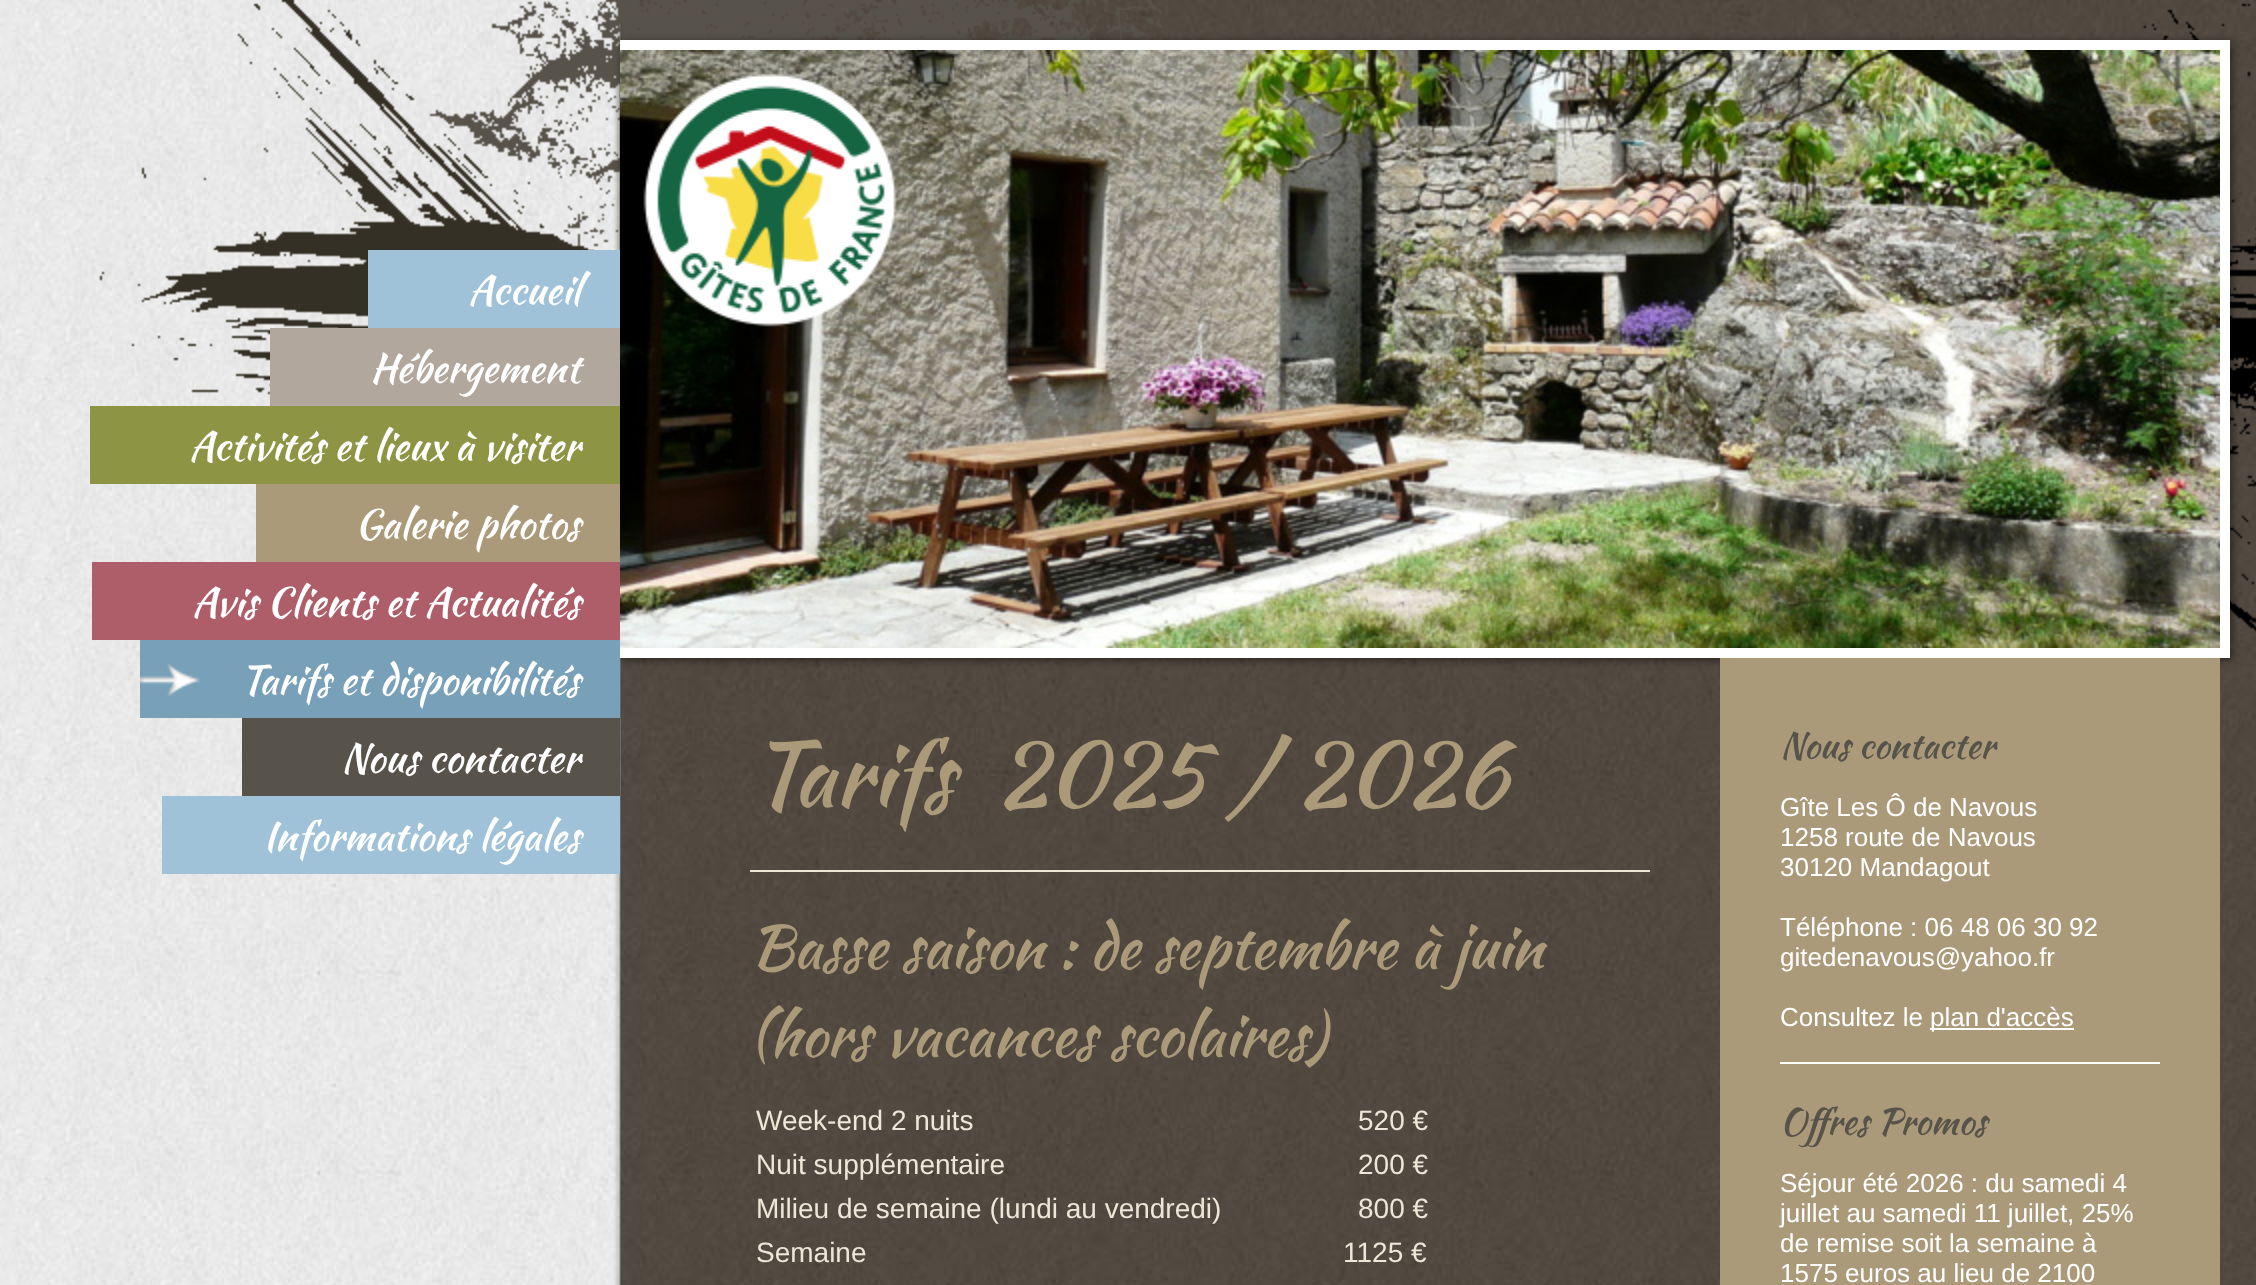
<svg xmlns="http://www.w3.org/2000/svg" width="2256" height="1285">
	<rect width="100%" height="100%" fill="#FFFFFF" />
	<image x="0" y="0" width="2256" height="1285" href="assets/img1.png" />
	<image x="99" y="0" width="2157" height="633" href="assets/img2.png" />
	<rect x="622" y="42" width="1610" height="618" fill="#000000" fill-opacity="0.5" filter="blur(4px)" />
	<rect x="368" y="250" width="252" height="78" fill="#9FC2D8" />
	<text x="468" y="304" font-family="Kaushan Script" font-size="40" fill="#FFFFFF">Accueil</text>
	<rect x="270" y="328" width="350" height="78" fill="#B1A79D" />
	<text x="370" y="382" font-family="Kaushan Script" font-size="40" fill="#FFFFFF">Hébergement</text>
	<rect x="90" y="406" width="530" height="78" fill="#8D9444" />
	<text x="189" y="460" font-family="Kaushan Script" font-size="40" fill="#FFFFFF">Activités et lieux à visiter</text>
	<rect x="256" y="484" width="364" height="78" fill="#AA9A79" />
	<text x="355" y="538" font-family="Kaushan Script" font-size="40" fill="#FFFFFF">Galerie photos</text>
	<rect x="92" y="562" width="528" height="78" fill="#AE5E69" />
	<text x="192" y="616" font-family="Kaushan Script" font-size="40" fill="#FFFFFF">Avis Clients et Actualités</text>
	<rect x="140" y="640" width="480" height="78" fill="#78A0B9" />
	<image x="140" y="664" width="60" height="32" href="assets/img3.png" />
	<text x="240" y="694" font-family="Kaushan Script" font-size="40" fill="#FFFFFF">Tarifs et disponibilités</text>
	<rect x="242" y="718" width="378" height="78" fill="#57534A" />
	<text x="341" y="772" font-family="Kaushan Script" font-size="40" fill="#FFFFFF">Nous contacter</text>
	<rect x="162" y="796" width="458" height="78" fill="#9FC2D8" />
	<text x="263" y="850" font-family="Kaushan Script" font-size="40" fill="#FFFFFF">Informations légales</text>
	<rect x="620" y="40" width="1600" height="10" fill="#FFFFFF" />
	<rect x="2220" y="40" width="10" height="608" fill="#FFFFFF" />
	<rect x="620" y="648" width="1610" height="10" fill="#FFFFFF" />
	<image x="620" y="50" width="1600" height="598" href="assets/img4.png" />
	<image x="643" y="73" width="254" height="254" href="assets/img5.png" />
	<text x="750" y="806" font-family="Kaushan Script" font-size="90" fill="#AA9A79" xml:space="preserve">Tarifs  2025 / 2026</text>
	<rect x="750" y="870" width="900" height="2" fill="#EEE7D8" />
	<g font-family="Kaushan Script" font-size="60" fill="#AA9A79">
		<text x="750" y="968">Basse saison : de septembre à juin</text>
		<text x="750" y="1056">(hors vacances scolaires)</text>
	</g>
	<g font-family="Liberation Sans" font-size="28" fill="#EEE7D8">
		<text x="756" y="1130">Week-end 2 nuits</text>
		<text x="1358" y="1130">520 €</text>
		<text x="756" y="1174">Nuit supplémentaire</text>
		<text x="1358" y="1174">200 €</text>
		<text x="756" y="1218">Milieu de semaine (lundi au vendredi)</text>
		<text x="1358" y="1218">800 €</text>
		<text x="756" y="1262">Semaine</text>
		<text x="1343" y="1262">1125 €</text>
	</g>
	<rect x="1720" y="658" width="500" height="627" fill="#AA9A79" />
	<text x="1780" y="758" font-family="Kaushan Script" font-size="36" fill="#57534A">Nous contacter</text>
	<g font-family="Liberation Sans" font-size="26" fill="#FFFFFF">
		<text x="1780" y="816">Gîte Les Ô de Navous</text>
		<text x="1780" y="846">1258 route de Navous</text>
		<text x="1780" y="876">30120 Mandagout</text>
		<text x="1780" y="936">Téléphone : 06 48 06 30 92</text>
		<text x="1780" y="966">gitedenavous@yahoo.fr</text>
		<text x="1780" y="1026">Consultez le</text>
	</g>
	<rect x="1930" y="1028" width="144" height="2" fill="#FFFFFF" />
	<text x="1930" y="1026" font-family="Liberation Sans" font-size="26" fill="#FFFFFF">plan d'accès</text>
	<rect x="1780" y="1062" width="380" height="2" fill="#FFFFFF" />
	<text x="1780" y="1134" font-family="Kaushan Script" font-size="36" fill="#57534A">Offres Promos</text>
	<g font-family="Liberation Sans" font-size="26" fill="#FFFFFF">
		<text x="1780" y="1192">Séjour été 2026 : du samedi 4</text>
		<text x="1780" y="1222">juillet au samedi 11 juillet, 25%</text>
		<text x="1780" y="1252">de remise soit la semaine à</text>
		<text x="1780" y="1282">1575 euros au lieu de 2100</text>
	</g>
</svg>
